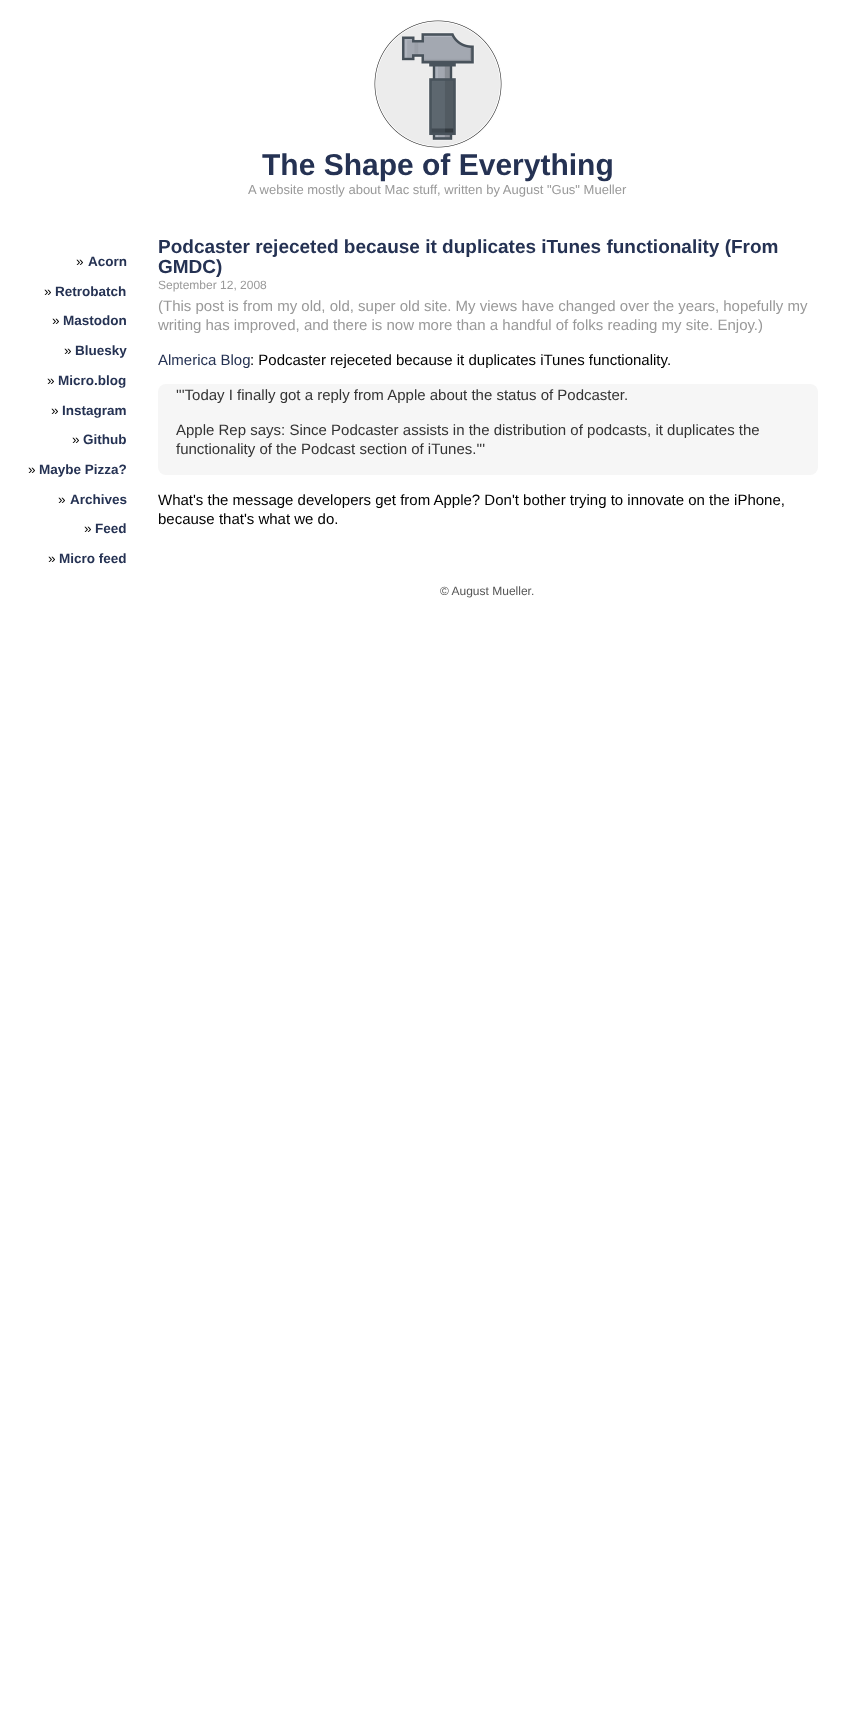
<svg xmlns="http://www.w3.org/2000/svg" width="865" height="1724">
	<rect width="100%" height="100%" fill="#FFFFFF" />
	<image x="374" y="20" width="128" height="128" href="assets/img1.png" />
	<text x="262" y="175" font-family="Liberation Sans" font-size="30" font-weight="700" fill="#253253">The Shape of Everything</text>
	<text x="248" y="194" font-family="Liberation Sans" font-size="13" fill="#999999">A website mostly about Mac stuff, written by August "Gus" Mueller</text>
	<text x="76" y="266" font-family="Liberation Sans" font-size="13.5" fill="#000000">»</text>
	<text x="88" y="266" font-family="Liberation Sans" font-size="13.5" font-weight="700" fill="#253253">Acorn</text>
	<text x="44" y="296" font-family="Liberation Sans" font-size="13.5" fill="#000000">»</text>
	<text x="55" y="296" font-family="Liberation Sans" font-size="13.5" font-weight="700" fill="#253253">Retrobatch</text>
	<text x="52" y="325" font-family="Liberation Sans" font-size="13.5" fill="#000000">»</text>
	<text x="63" y="325" font-family="Liberation Sans" font-size="13.5" font-weight="700" fill="#253253">Mastodon</text>
	<text x="64" y="355" font-family="Liberation Sans" font-size="13.5" fill="#000000">»</text>
	<text x="75" y="355" font-family="Liberation Sans" font-size="13.5" font-weight="700" fill="#253253">Bluesky</text>
	<text x="47" y="385" font-family="Liberation Sans" font-size="13.5" fill="#000000">»</text>
	<text x="58" y="385" font-family="Liberation Sans" font-size="13.5" font-weight="700" fill="#253253">Micro.blog</text>
	<text x="51" y="415" font-family="Liberation Sans" font-size="13.5" fill="#000000">»</text>
	<text x="62" y="415" font-family="Liberation Sans" font-size="13.5" font-weight="700" fill="#253253">Instagram</text>
	<text x="72" y="444" font-family="Liberation Sans" font-size="13.5" fill="#000000">»</text>
	<text x="83" y="444" font-family="Liberation Sans" font-size="13.5" font-weight="700" fill="#253253">Github</text>
	<text x="28" y="474" font-family="Liberation Sans" font-size="13.5" fill="#000000">»</text>
	<text x="39" y="474" font-family="Liberation Sans" font-size="13.5" font-weight="700" fill="#253253">Maybe Pizza?</text>
	<text x="58" y="504" font-family="Liberation Sans" font-size="13.5" fill="#000000">»</text>
	<text x="70" y="504" font-family="Liberation Sans" font-size="13.5" font-weight="700" fill="#253253">Archives</text>
	<text x="84" y="533" font-family="Liberation Sans" font-size="13.5" fill="#000000">»</text>
	<text x="95" y="533" font-family="Liberation Sans" font-size="13.5" font-weight="700" fill="#253253">Feed</text>
	<text x="48" y="563" font-family="Liberation Sans" font-size="13.5" fill="#000000">»</text>
	<text x="59" y="563" font-family="Liberation Sans" font-size="13.5" font-weight="700" fill="#253253">Micro feed</text>
	<g font-family="Liberation Sans" font-size="19" font-weight="700" fill="#253253">
		<text x="158" y="253">Podcaster rejeceted because it duplicates iTunes functionality (From</text>
		<text x="158" y="273">GMDC)</text>
	</g>
	<text x="158" y="289" font-family="Liberation Sans" font-size="12" fill="#999999">September 12, 2008</text>
	<g font-family="Liberation Sans" font-size="15" fill="#999999">
		<text x="158" y="311">(This post is from my old, old, super old site. My views have changed over the years, hopefully my</text>
		<text x="158" y="330">writing has improved, and there is now more than a handful of folks reading my site. Enjoy.)</text>
	</g>
	<text x="158" y="365" font-family="Liberation Sans" font-size="15" fill="#253253">Almerica Blog</text>
	<text x="250" y="365" font-family="Liberation Sans" font-size="15" fill="#000000">: Podcaster rejeceted because it duplicates iTunes functionality.</text>
	<rect x="158" y="384" width="660" height="91" rx="8" fill="#F6F6F6" />
	<g font-family="Liberation Sans" font-size="15" fill="#333333">
		<text x="176" y="400">'''Today I finally got a reply from Apple about the status of Podcaster.</text>
		<text x="176" y="435">Apple Rep says: Since Podcaster assists in the distribution of podcasts, it duplicates the</text>
		<text x="176" y="454">functionality of the Podcast section of iTunes.'''</text>
	</g>
	<g font-family="Liberation Sans" font-size="15" fill="#000000">
		<text x="158" y="505">What's the message developers get from Apple? Don't bother trying to innovate on the iPhone,</text>
		<text x="158" y="524">because that's what we do.</text>
	</g>
	<text x="440" y="595" font-family="Liberation Sans" font-size="12" fill="#555555">© August Mueller.</text>
</svg>
